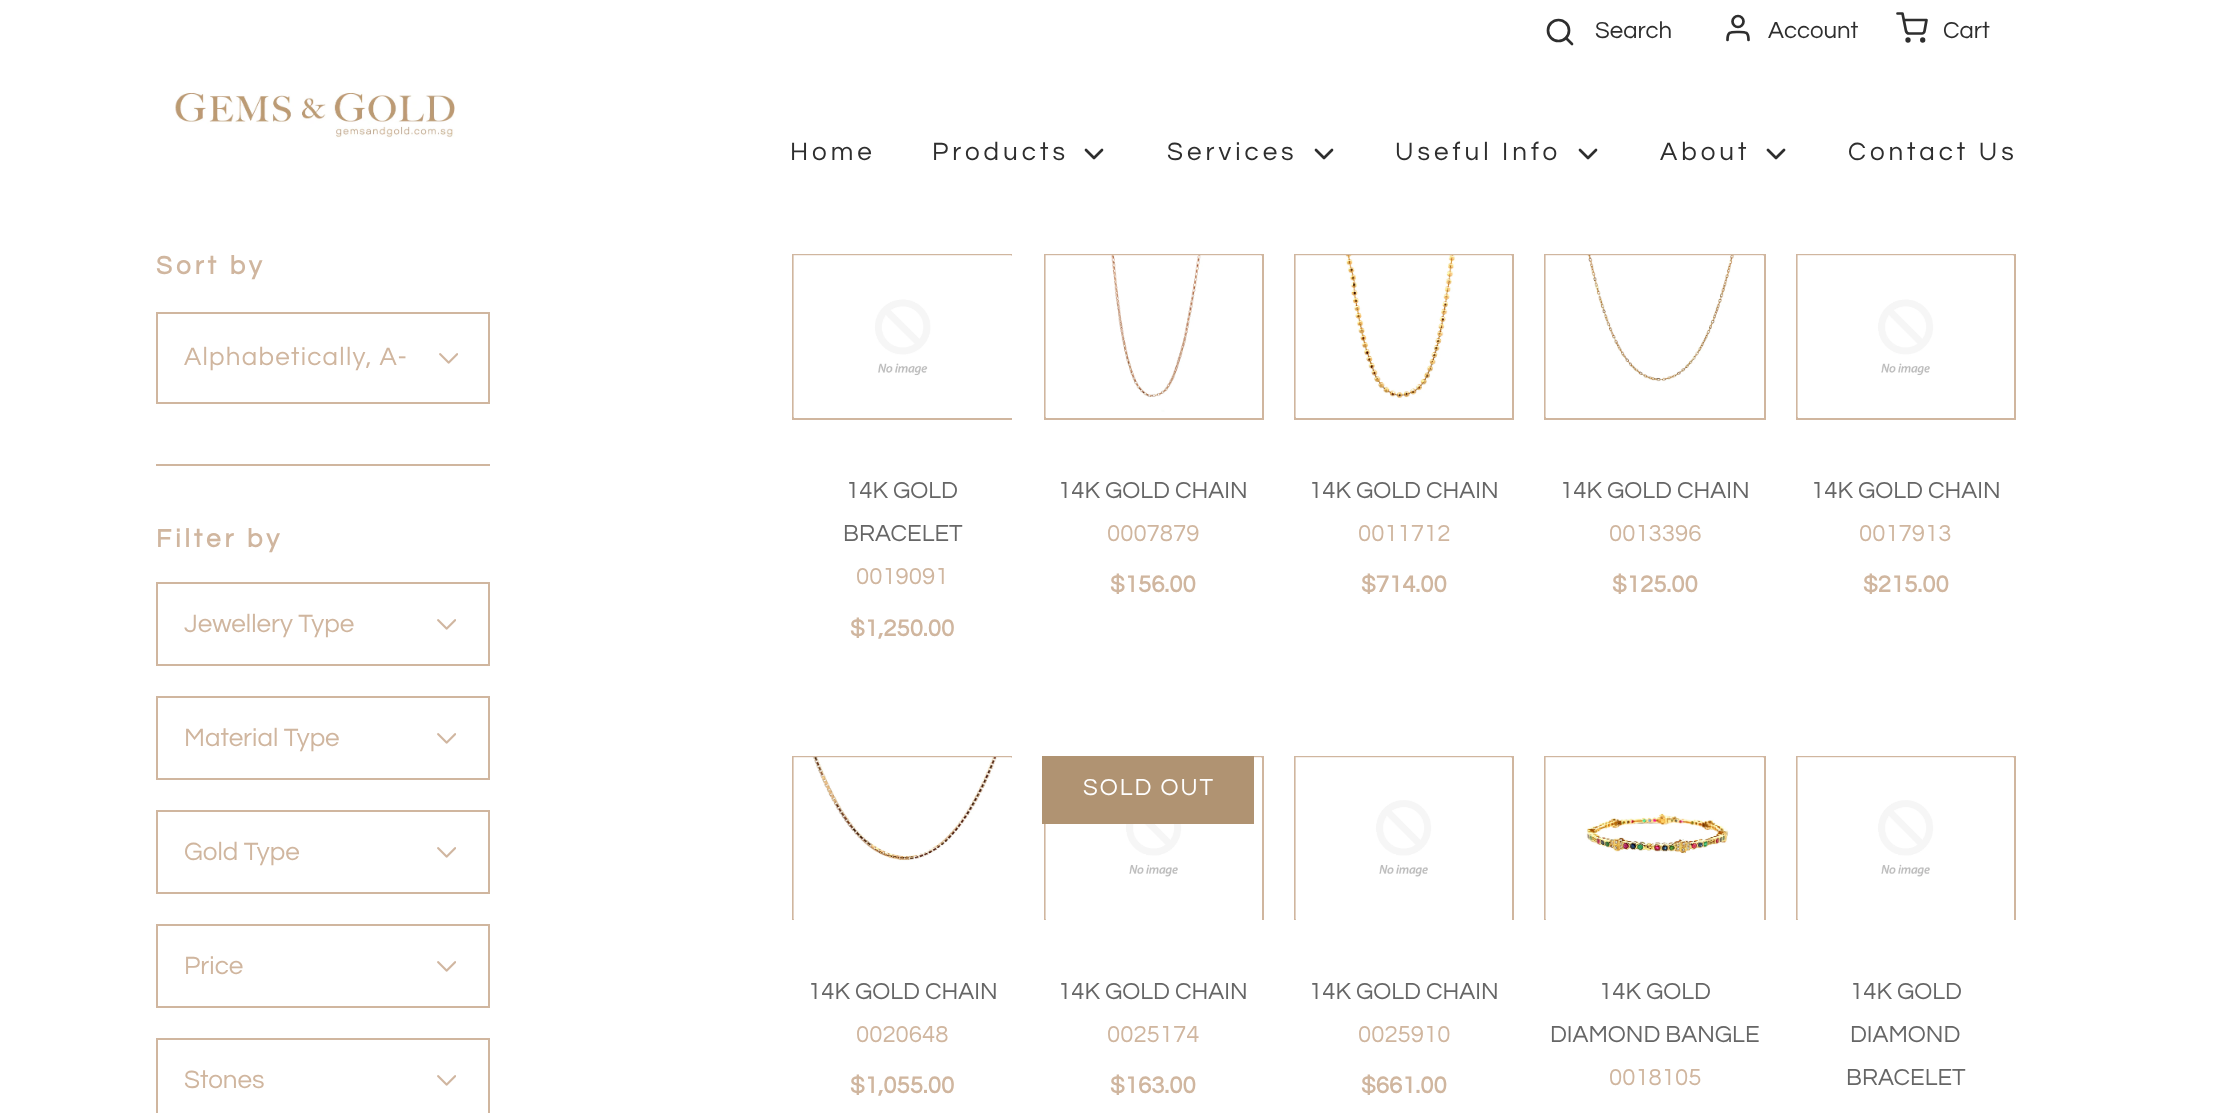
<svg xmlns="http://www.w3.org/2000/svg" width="2232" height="1113">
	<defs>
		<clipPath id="clip1"><rect x="792" y="254" width="220" height="166" /></clipPath>
		<clipPath id="clip2"><rect x="792" y="756" width="220" height="164" /></clipPath>
		<clipPath id="clip3"><rect x="1042" y="756" width="222" height="164" /></clipPath>
		<clipPath id="clip4"><rect x="1294" y="756" width="220" height="164" /></clipPath>
		<clipPath id="clip5"><rect x="1544" y="756" width="222" height="164" /></clipPath>
		<clipPath id="clip6"><rect x="1796" y="756" width="220" height="164" /></clipPath>
	</defs>
	<rect width="100%" height="100%" fill="#FFFFFF" />
	<circle cx="1558.5" cy="30.5" r="10.5" fill="none" stroke="#2E2E2E" stroke-width="2.7" />
	<text x="1595" y="38" font-family="Questrial" font-size="24" fill="#2E2E2E">Search</text>
	<path d="M1572 44L1566 38" fill="none" stroke="#2E2E2E" stroke-width="2.7" stroke-linecap="round" stroke-linejoin="round" />
	<path d="M1748.5 40C1748.5 31.5 1745.5 32 1738 32C1730.5 32 1727.5 31.5 1727.5 40" fill="none" stroke="#2E2E2E" stroke-width="2.7" stroke-linecap="round" stroke-linejoin="round" />
	<circle cx="1738" cy="21.5" r="5.5" fill="none" stroke="#2E2E2E" stroke-width="2.7" />
	<text x="1768" y="38" font-family="Questrial" font-size="24" fill="#2E2E2E">Account</text>
	<circle cx="1908" cy="40" r="1.3" fill="none" stroke="#2E2E2E" stroke-width="2.7" />
	<circle cx="1922.7" cy="40" r="1.3" fill="none" stroke="#2E2E2E" stroke-width="2.7" />
	<path d="M1897.5 13.5H1902.5L1906 31C1906.5 32.5 1907.5 33.5 1909 33.5H1922C1923 33.5 1924.5 32.5 1924.5 31L1926.5 20H1904" fill="none" stroke="#2E2E2E" stroke-width="2.7" stroke-linecap="round" stroke-linejoin="round" />
	<text x="1943" y="38" font-family="Questrial" font-size="24" fill="#2E2E2E">Cart</text>
	<image x="175" y="92" width="280" height="46" href="assets/img1.png" />
	<g font-family="Questrial" font-size="26" letter-spacing="4" fill="#2E2E2E">
		<text x="790" y="160">Home</text>
		<text x="932" y="160">Products</text>
	</g>
	<path d="M1086 150L1094 158L1102 150" fill="none" stroke="#2E2E2E" stroke-width="2.7" stroke-linecap="round" stroke-linejoin="round" />
	<text x="1167" y="160" font-family="Questrial" font-size="26" letter-spacing="4" fill="#2E2E2E">Services</text>
	<path d="M1316 150L1324 158L1332 150" fill="none" stroke="#2E2E2E" stroke-width="2.7" stroke-linecap="round" stroke-linejoin="round" />
	<text x="1395" y="160" font-family="Questrial" font-size="26" letter-spacing="4" fill="#2E2E2E">Useful Info</text>
	<path d="M1580 150L1588 158L1596 150" fill="none" stroke="#2E2E2E" stroke-width="2.7" stroke-linecap="round" stroke-linejoin="round" />
	<text x="1660" y="160" font-family="Questrial" font-size="26" letter-spacing="4" fill="#2E2E2E">About</text>
	<path d="M1768 150L1776 158L1784 150" fill="none" stroke="#2E2E2E" stroke-width="2.7" stroke-linecap="round" stroke-linejoin="round" />
	<text x="1848" y="160" font-family="Questrial" font-size="26" letter-spacing="4" fill="#2E2E2E">Contact Us</text>
	<text x="156" y="274" font-family="Questrial" font-size="26" font-weight="700" letter-spacing="4" fill="#D0B69F">Sort by</text>
	<rect x="157" y="313" width="332" height="90" fill="none" stroke="#D0B69F" stroke-width="2" />
	<text x="184" y="365" font-family="Questrial" font-size="26" letter-spacing="1.25" fill="#D0B69F">Alphabetically, A-</text>
	<image x="439" y="353" width="19" height="11" href="assets/img2.png" />
	<rect x="156" y="464" width="334" height="2" fill="#D0B69F" />
	<text x="156" y="547" font-family="Questrial" font-size="26" font-weight="700" letter-spacing="4" fill="#D0B69F">Filter by</text>
	<rect x="157" y="583" width="332" height="82" fill="none" stroke="#D0B69F" stroke-width="2" />
	<text x="184" y="632" font-family="Questrial" font-size="26" fill="#D0B69F">Jewellery Type</text>
	<image x="437" y="619" width="19" height="11" href="assets/img2.png" />
	<rect x="157" y="697" width="332" height="82" fill="none" stroke="#D0B69F" stroke-width="2" />
	<text x="184" y="746" font-family="Questrial" font-size="26" fill="#D0B69F">Material Type</text>
	<image x="437" y="733" width="19" height="11" href="assets/img2.png" />
	<rect x="157" y="811" width="332" height="82" fill="none" stroke="#D0B69F" stroke-width="2" />
	<text x="184" y="860" font-family="Questrial" font-size="26" fill="#D0B69F">Gold Type</text>
	<image x="437" y="847" width="19" height="11" href="assets/img2.png" />
	<rect x="157" y="925" width="332" height="82" fill="none" stroke="#D0B69F" stroke-width="2" />
	<text x="184" y="974" font-family="Questrial" font-size="26" fill="#D0B69F">Price</text>
	<image x="437" y="961" width="19" height="11" href="assets/img2.png" />
	<rect x="157" y="1039" width="332" height="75" fill="none" stroke="#D0B69F" stroke-width="2" />
	<text x="184" y="1088" font-family="Questrial" font-size="26" fill="#D0B69F">Stones</text>
	<image x="437" y="1075" width="19" height="11" href="assets/img2.png" />
	<g clip-path="url(#clip1)">
		<rect x="793" y="255" width="220" height="164" fill="none" stroke="#D0B69F" stroke-width="2" />
	</g>
	<image x="793" y="255" width="219" height="163" href="assets/img3.png" />
	<g font-family="Questrial" font-size="24" fill="#666666">
		<text x="846" y="498">14K GOLD</text>
		<text x="843" y="541">BRACELET</text>
	</g>
	<text x="856" y="584" font-family="Questrial" font-size="24" fill="#D0B69F">0019091</text>
	<text x="850" y="636" font-family="Questrial" font-size="24" font-weight="700" fill="#D0B69F">$1,250.00</text>
	<rect x="1045" y="255" width="218" height="164" fill="none" stroke="#D0B69F" stroke-width="2" />
	<image x="1045" y="255" width="217" height="163" href="assets/img4.png" />
	<text x="1058" y="498" font-family="Questrial" font-size="24" fill="#666666">14K GOLD CHAIN</text>
	<text x="1107" y="541" font-family="Questrial" font-size="24" fill="#D0B69F">0007879</text>
	<text x="1110" y="592" font-family="Questrial" font-size="24" font-weight="700" fill="#D0B69F">$156.00</text>
	<rect x="1295" y="255" width="218" height="164" fill="none" stroke="#D0B69F" stroke-width="2" />
	<image x="1295" y="255" width="217" height="163" href="assets/img5.png" />
	<text x="1309" y="498" font-family="Questrial" font-size="24" fill="#666666">14K GOLD CHAIN</text>
	<text x="1358" y="541" font-family="Questrial" font-size="24" fill="#D0B69F">0011712</text>
	<text x="1361" y="592" font-family="Questrial" font-size="24" font-weight="700" fill="#D0B69F">$714.00</text>
	<rect x="1545" y="255" width="220" height="164" fill="none" stroke="#D0B69F" stroke-width="2" />
	<image x="1545" y="255" width="219" height="163" href="assets/img6.png" />
	<text x="1560" y="498" font-family="Questrial" font-size="24" fill="#666666">14K GOLD CHAIN</text>
	<text x="1609" y="541" font-family="Questrial" font-size="24" fill="#D0B69F">0013396</text>
	<text x="1612" y="592" font-family="Questrial" font-size="24" font-weight="700" fill="#D0B69F">$125.00</text>
	<rect x="1797" y="255" width="218" height="164" fill="none" stroke="#D0B69F" stroke-width="2" />
	<image x="1797" y="255" width="217" height="163" href="assets/img7.png" />
	<text x="1811" y="498" font-family="Questrial" font-size="24" fill="#666666">14K GOLD CHAIN</text>
	<text x="1859" y="541" font-family="Questrial" font-size="24" fill="#D0B69F">0017913</text>
	<text x="1863" y="592" font-family="Questrial" font-size="24" font-weight="700" fill="#D0B69F">$215.00</text>
	<g clip-path="url(#clip2)">
		<rect x="793" y="757" width="220" height="164" fill="none" stroke="#D0B69F" stroke-width="2" />
	</g>
	<image x="793" y="757" width="219" height="163" href="assets/img8.png" />
	<text x="808" y="999" font-family="Questrial" font-size="24" fill="#666666">14K GOLD CHAIN</text>
	<text x="856" y="1042" font-family="Questrial" font-size="24" fill="#D0B69F">0020648</text>
	<text x="850" y="1093" font-family="Questrial" font-size="24" font-weight="700" fill="#D0B69F">$1,055.00</text>
	<g clip-path="url(#clip3)">
		<rect x="1045" y="757" width="218" height="164" fill="none" stroke="#D0B69F" stroke-width="2" />
	</g>
	<image x="1045" y="757" width="217" height="163" href="assets/img9.png" />
	<rect x="1042" y="756" width="212" height="68" fill="#B09372" />
	<text x="1083" y="795" font-family="Questrial" font-size="24" letter-spacing="2" fill="#FFFFFF">SOLD OUT</text>
	<text x="1058" y="999" font-family="Questrial" font-size="24" fill="#666666">14K GOLD CHAIN</text>
	<text x="1107" y="1042" font-family="Questrial" font-size="24" fill="#D0B69F">0025174</text>
	<text x="1110" y="1093" font-family="Questrial" font-size="24" font-weight="700" fill="#D0B69F">$163.00</text>
	<g clip-path="url(#clip4)">
		<rect x="1295" y="757" width="218" height="164" fill="none" stroke="#D0B69F" stroke-width="2" />
	</g>
	<image x="1295" y="757" width="217" height="163" href="assets/img10.png" />
	<text x="1309" y="999" font-family="Questrial" font-size="24" fill="#666666">14K GOLD CHAIN</text>
	<text x="1358" y="1042" font-family="Questrial" font-size="24" fill="#D0B69F">0025910</text>
	<text x="1361" y="1093" font-family="Questrial" font-size="24" font-weight="700" fill="#D0B69F">$661.00</text>
	<g clip-path="url(#clip5)">
		<rect x="1545" y="757" width="220" height="164" fill="none" stroke="#D0B69F" stroke-width="2" />
	</g>
	<image x="1545" y="757" width="219" height="163" href="assets/img11.png" />
	<g font-family="Questrial" font-size="24" fill="#666666">
		<text x="1599" y="999">14K GOLD</text>
		<text x="1550" y="1042">DIAMOND BANGLE</text>
	</g>
	<text x="1609" y="1085" font-family="Questrial" font-size="24" fill="#D0B69F">0018105</text>
	<g clip-path="url(#clip6)">
		<rect x="1797" y="757" width="218" height="164" fill="none" stroke="#D0B69F" stroke-width="2" />
	</g>
	<image x="1797" y="757" width="217" height="163" href="assets/img9.png" />
	<g font-family="Questrial" font-size="24" fill="#666666">
		<text x="1850" y="999">14K GOLD</text>
		<text x="1850" y="1042">DIAMOND</text>
		<text x="1846" y="1085">BRACELET</text>
	</g>
</svg>
